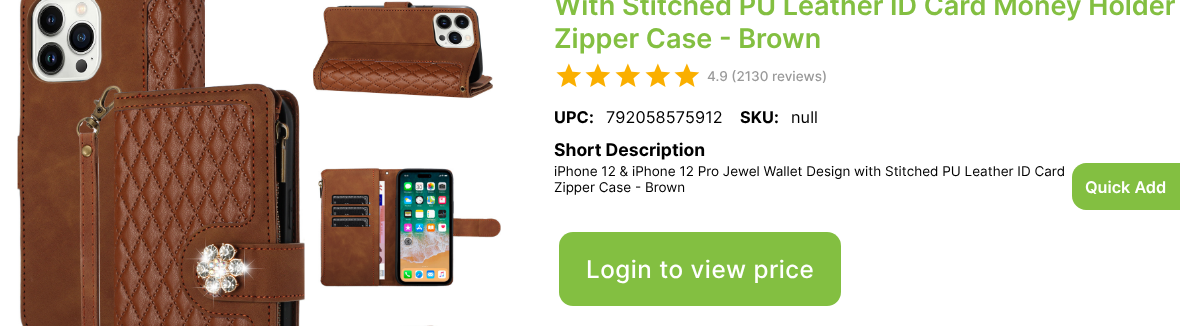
<svg xmlns="http://www.w3.org/2000/svg" width="1180" height="326">
	<rect width="100%" height="100%" fill="#FFFFFF" />
	<image x="17" y="0" width="484" height="326" href="assets/img1.png" />
	<g font-family="Inter" font-size="27" font-weight="600" fill="#83BF41">
		<text x="554" y="15">With Stitched PU Leather ID Card Money Holder</text>
		<text x="554" y="48">Zipper Case - Brown</text>
	</g>
	<image x="556" y="63" width="26" height="24" href="assets/img2.png" />
	<image x="585" y="63" width="26" height="24" href="assets/img2.png" />
	<image x="615" y="63" width="26" height="24" href="assets/img2.png" />
	<image x="645" y="63" width="26" height="24" href="assets/img2.png" />
	<image x="674" y="63" width="26" height="24" href="assets/img2.png" />
	<text x="707" y="81" font-family="Inter" font-size="13.5" font-weight="500" fill="#9A9A9A">4.9 (2130 reviews)</text>
	<text x="554" y="123" font-family="Inter" font-size="16.25" font-weight="700" letter-spacing="0.1" fill="#000000">UPC:</text>
	<text x="606" y="123" font-family="Inter" font-size="16.25" letter-spacing="0.1" fill="#000000">792058575912</text>
	<text x="740" y="123" font-family="Inter" font-size="16.25" font-weight="700" letter-spacing="0.1" fill="#000000">SKU:</text>
	<text x="791" y="123" font-family="Inter" font-size="16.25" letter-spacing="0.1" fill="#000000">null</text>
	<text x="554" y="156" font-family="Inter" font-size="17.5" font-weight="700" fill="#000000">Short Description</text>
	<g font-family="Inter" font-size="13.5" fill="#000000">
		<text x="554" y="176">iPhone 12 &amp; iPhone 12 Pro Jewel Wallet Design with Stitched PU Leather ID Card</text>
		<text x="554" y="192">Zipper Case - Brown</text>
	</g>
	<rect x="559" y="232" width="282" height="74" rx="14" fill="#83BF41" />
	<text x="586" y="278" font-family="Inter" font-size="24.25" font-weight="500" letter-spacing="0.5" fill="#FFFFFF">Login to view price</text>
	<path d="M1086 163H1180V210H1086C1078.5 210 1072 203.5 1072 196V177C1072 169.5 1078.5 163 1086 163Z" fill="#83BF41" />
	<text x="1085" y="193" font-family="Inter" font-size="16.25" font-weight="600" fill="#FFFFFF">Quick Add</text>
</svg>
